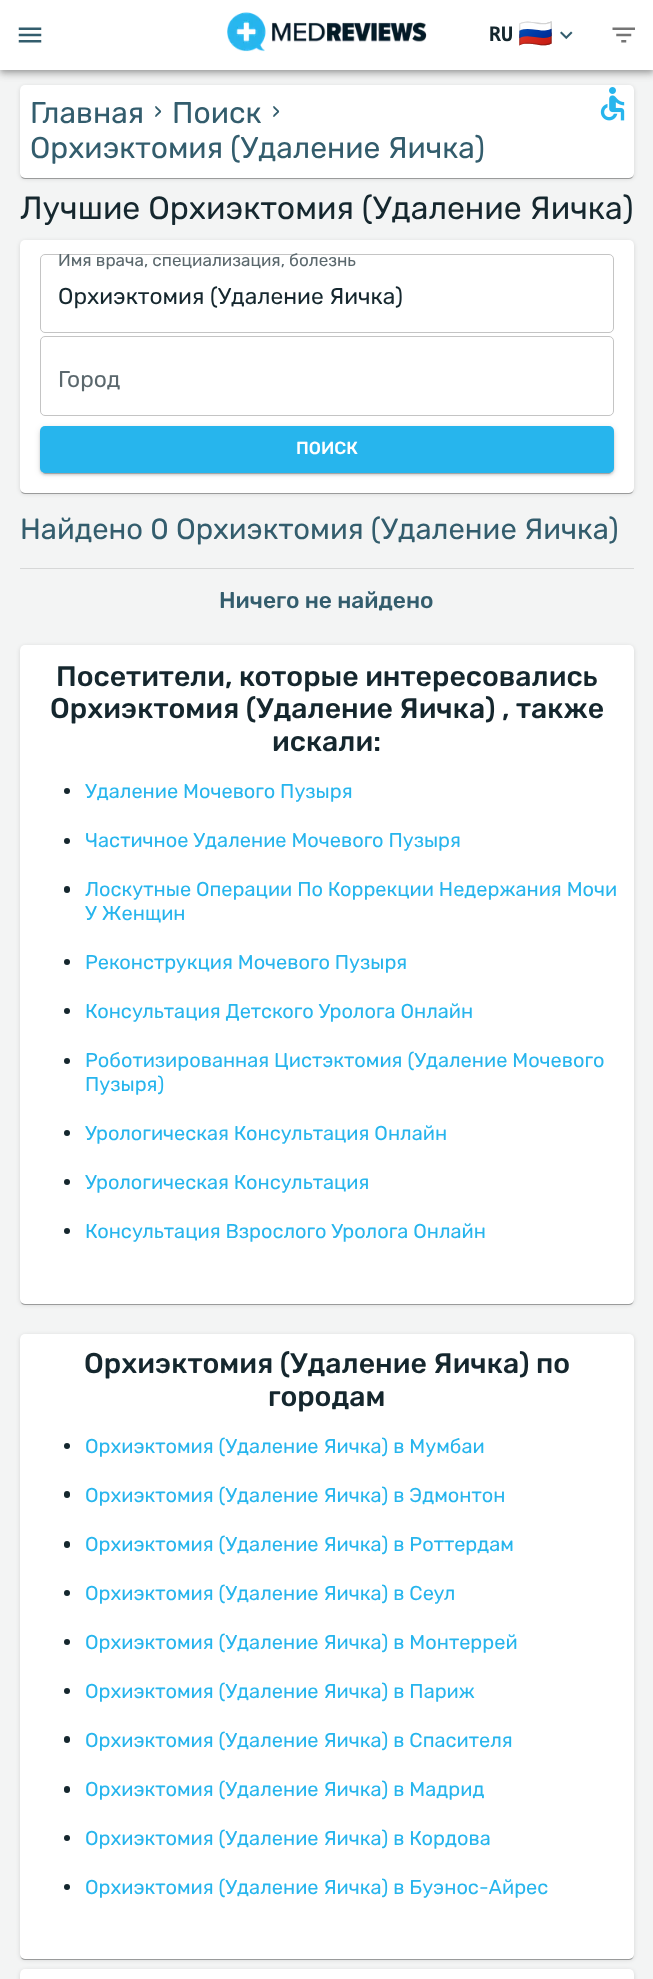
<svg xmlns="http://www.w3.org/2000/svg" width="653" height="1979">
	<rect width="100%" height="100%" fill="#F3F4F4" />
	<rect x="20" y="86" width="614" height="93" rx="5" fill="#000000" fill-opacity="0.12" filter="blur(2px)" />
	<rect x="20" y="86" width="614" height="93" rx="5" fill="#000000" fill-opacity="0.14" filter="blur(0.5px)" />
	<rect x="21" y="89" width="612" height="90" rx="4" fill="#000000" fill-opacity="0.2" filter="blur(0.5px)" />
	<rect x="20" y="85" width="614" height="93" rx="5" fill="#FFFFFF" />
	<rect x="0" y="1" width="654" height="70" fill="#000000" fill-opacity="0.12" filter="blur(6px)" />
	<rect x="0" y="5" width="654" height="70" fill="#000000" fill-opacity="0.14" filter="blur(3px)" />
	<rect x="1" y="4" width="652" height="67" fill="#000000" fill-opacity="0.2" filter="blur(2.5px)" />
	<rect x="0" y="0" width="653" height="70" fill="#FFFFFF" />
	<image x="18" y="27" width="24" height="16" href="assets/img1.png" />
	<image x="227" y="12" width="200" height="40" href="assets/img2.png" />
	<text x="489" y="41" font-family="DejaVu Sans Mono" font-size="20" font-weight="700" fill="#15272E">RU</text>
	<text x="518" y="43" font-family="Noto Color Emoji" font-size="28" fill="#335D6D">🇷🇺</text>
	<image x="560" y="31" width="13" height="9" href="assets/img3.png" />
	<image x="612" y="27" width="23" height="16" href="assets/img4.png" />
	<image x="600" y="87" width="25" height="34" href="assets/img5.png" />
	<text x="30" y="123" font-family="Rubik" font-size="30" fill="#335D6D">Главная</text>
	<text x="154" y="119" font-family="Rubik" font-size="22.75" fill="#335D6D">›</text>
	<text x="172" y="123" font-family="Rubik" font-size="30" fill="#335D6D">Поиск</text>
	<text x="272" y="119" font-family="Rubik" font-size="22.75" fill="#335D6D">›</text>
	<text x="30" y="158" font-family="Rubik" font-size="30" fill="#335D6D">Орхиэктомия (Удаление Яичка)</text>
	<text x="20" y="219" font-family="Rubik" font-size="32" fill="#15272E">Лучшие Орхиэктомия (Удаление Яичка)</text>
	<rect x="20" y="241" width="614" height="253" rx="5" fill="#000000" fill-opacity="0.12" filter="blur(2px)" />
	<rect x="20" y="241" width="614" height="253" rx="5" fill="#000000" fill-opacity="0.14" filter="blur(0.5px)" />
	<rect x="21" y="244" width="612" height="250" rx="4" fill="#000000" fill-opacity="0.2" filter="blur(0.5px)" />
	<rect x="20" y="240" width="614" height="253" rx="5" fill="#FFFFFF" />
	<rect x="40.5" y="254.5" width="573" height="78" rx="4.5" fill="none" stroke="#C4C4C4" />
	<text x="58" y="266" font-family="Rubik" font-size="17.1" fill="#5B686D">Имя врача, специализация, болезнь</text>
	<text x="58" y="304" font-family="Rubik" font-size="22.75" fill="#15272E">Орхиэктомия (Удаление Яичка)</text>
	<rect x="40.5" y="336.5" width="573" height="79" rx="4.5" fill="none" stroke="#C4C4C4" />
	<text x="58" y="387" font-family="Rubik" font-size="22.75" fill="#5B686D">Город</text>
	<rect x="40" y="428" width="574" height="46" rx="5" fill="#000000" fill-opacity="0.12" filter="blur(3px)" />
	<rect x="40" y="429" width="574" height="46" rx="5" fill="#000000" fill-opacity="0.14" filter="blur(1px)" />
	<rect x="43" y="433" width="568" height="41" rx="2.5" fill="#000000" fill-opacity="0.2" filter="blur(0.5px)" />
	<rect x="40" y="426" width="574" height="47" rx="5" fill="#27B5ED" />
	<text x="296" y="454" font-family="Rubik" font-size="17.5" font-weight="500" fill="#FFFFFF">ПОИСК</text>
	<text x="20" y="539" font-family="Rubik" font-size="29.2" fill="#335D6D">Найдено 0 Орхиэктомия (Удаление Яичка)</text>
	<rect x="20" y="568" width="614" height="1" fill="#D6D7D7" />
	<text x="219" y="608" font-family="Rubik" font-size="22.75" font-weight="500" fill="#335D6D">Ничего не найдено</text>
	<rect x="20" y="646" width="614" height="659" rx="5" fill="#000000" fill-opacity="0.12" filter="blur(2px)" />
	<rect x="20" y="646" width="614" height="659" rx="5" fill="#000000" fill-opacity="0.14" filter="blur(0.5px)" />
	<rect x="21" y="649" width="612" height="656" rx="4" fill="#000000" fill-opacity="0.2" filter="blur(0.5px)" />
	<rect x="20" y="645" width="614" height="659" rx="5" fill="#FFFFFF" />
	<g font-family="Rubik" font-size="28.4" font-weight="500" fill="#15272E">
		<text x="56" y="686">Посетители, которые интересовались</text>
		<text x="50" y="718">Орхиэктомия (Удаление Яичка) , также</text>
		<text x="272" y="751">искали:</text>
	</g>
	<circle cx="67" cy="791" r="3" fill="#15272E" />
	<text x="85" y="798" font-family="Rubik" font-size="20" fill="#27B5ED">Удаление Мочевого Пузыря</text>
	<circle cx="67" cy="841" r="3" fill="#15272E" />
	<text x="85" y="847" font-family="Rubik" font-size="20" fill="#27B5ED">Частичное Удаление Мочевого Пузыря</text>
	<rect x="64" y="886" width="6" height="7" rx="3" fill="#15272E" />
	<g font-family="Rubik" font-size="20" fill="#27B5ED">
		<text x="85" y="896">Лоскутные Операции По Коррекции Недержания Мочи</text>
		<text x="85" y="920">У Женщин</text>
	</g>
	<circle cx="67" cy="962" r="3" fill="#15272E" />
	<text x="85" y="969" font-family="Rubik" font-size="20" fill="#27B5ED">Реконструкция Мочевого Пузыря</text>
	<circle cx="67" cy="1011" r="3" fill="#15272E" />
	<text x="85" y="1018" font-family="Rubik" font-size="20" fill="#27B5ED">Консультация Детского Уролога Онлайн</text>
	<circle cx="67" cy="1061" r="3" fill="#15272E" />
	<g font-family="Rubik" font-size="20" fill="#27B5ED">
		<text x="85" y="1067">Роботизированная Цистэктомия (Удаление Мочевого</text>
		<text x="85" y="1091">Пузыря)</text>
	</g>
	<circle cx="67" cy="1133" r="3" fill="#15272E" />
	<text x="85" y="1140" font-family="Rubik" font-size="20" fill="#27B5ED">Урологическая Консультация Онлайн</text>
	<circle cx="67" cy="1182" r="3" fill="#15272E" />
	<text x="85" y="1189" font-family="Rubik" font-size="20" fill="#27B5ED">Урологическая Консультация</text>
	<circle cx="67" cy="1231" r="3" fill="#15272E" />
	<text x="85" y="1238" font-family="Rubik" font-size="20" fill="#27B5ED">Консультация Взрослого Уролога Онлайн</text>
	<rect x="20" y="1335" width="614" height="625" rx="5" fill="#000000" fill-opacity="0.12" filter="blur(2px)" />
	<rect x="20" y="1335" width="614" height="625" rx="5" fill="#000000" fill-opacity="0.14" filter="blur(0.5px)" />
	<rect x="21" y="1338" width="612" height="622" rx="4" fill="#000000" fill-opacity="0.2" filter="blur(0.5px)" />
	<rect x="20" y="1334" width="614" height="625" rx="5" fill="#FFFFFF" />
	<g font-family="Rubik" font-size="28.4" font-weight="500" fill="#15272E">
		<text x="84" y="1373">Орхиэктомия (Удаление Яичка) по</text>
		<text x="268" y="1406">городам</text>
	</g>
	<circle cx="67" cy="1446" r="3" fill="#15272E" />
	<text x="85" y="1453" font-family="Rubik" font-size="20" fill="#27B5ED">Орхиэктомия (Удаление Яичка) в Мумбаи</text>
	<rect x="64" y="1491" width="6" height="7" rx="3" fill="#15272E" />
	<text x="85" y="1502" font-family="Rubik" font-size="20" fill="#27B5ED">Орхиэктомия (Удаление Яичка) в Эдмонтон</text>
	<rect x="64" y="1541" width="6" height="7" rx="3" fill="#15272E" />
	<text x="85" y="1551" font-family="Rubik" font-size="20" fill="#27B5ED">Орхиэктомия (Удаление Яичка) в Роттердам</text>
	<circle cx="67" cy="1593" r="3" fill="#15272E" />
	<text x="85" y="1600" font-family="Rubik" font-size="20" fill="#27B5ED">Орхиэктомия (Удаление Яичка) в Сеул</text>
	<circle cx="67" cy="1642" r="3" fill="#15272E" />
	<text x="85" y="1649" font-family="Rubik" font-size="20" fill="#27B5ED">Орхиэктомия (Удаление Яичка) в Монтеррей</text>
	<circle cx="67" cy="1691" r="3" fill="#15272E" />
	<text x="85" y="1698" font-family="Rubik" font-size="20" fill="#27B5ED">Орхиэктомия (Удаление Яичка) в Париж</text>
	<rect x="64" y="1736" width="6" height="7" rx="3" fill="#15272E" />
	<text x="85" y="1747" font-family="Rubik" font-size="20" fill="#27B5ED">Орхиэктомия (Удаление Яичка) в Спасителя</text>
	<rect x="64" y="1786" width="6" height="7" rx="3" fill="#15272E" />
	<text x="85" y="1796" font-family="Rubik" font-size="20" fill="#27B5ED">Орхиэктомия (Удаление Яичка) в Мадрид</text>
	<circle cx="67" cy="1838" r="3" fill="#15272E" />
	<text x="85" y="1845" font-family="Rubik" font-size="20" fill="#27B5ED">Орхиэктомия (Удаление Яичка) в Кордова</text>
	<circle cx="67" cy="1887" r="3" fill="#15272E" />
	<text x="85" y="1894" font-family="Rubik" font-size="20" fill="#27B5ED">Орхиэктомия (Удаление Яичка) в Буэнос-Айрес</text>
	<rect x="20" y="1970" width="614" height="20" rx="5" fill="#000000" fill-opacity="0.12" filter="blur(2px)" />
	<rect x="20" y="1970" width="614" height="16" rx="5" fill="#000000" fill-opacity="0.14" filter="blur(0.5px)" />
	<rect x="20" y="1969" width="614" height="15" rx="5" fill="#FFFFFF" />
</svg>
